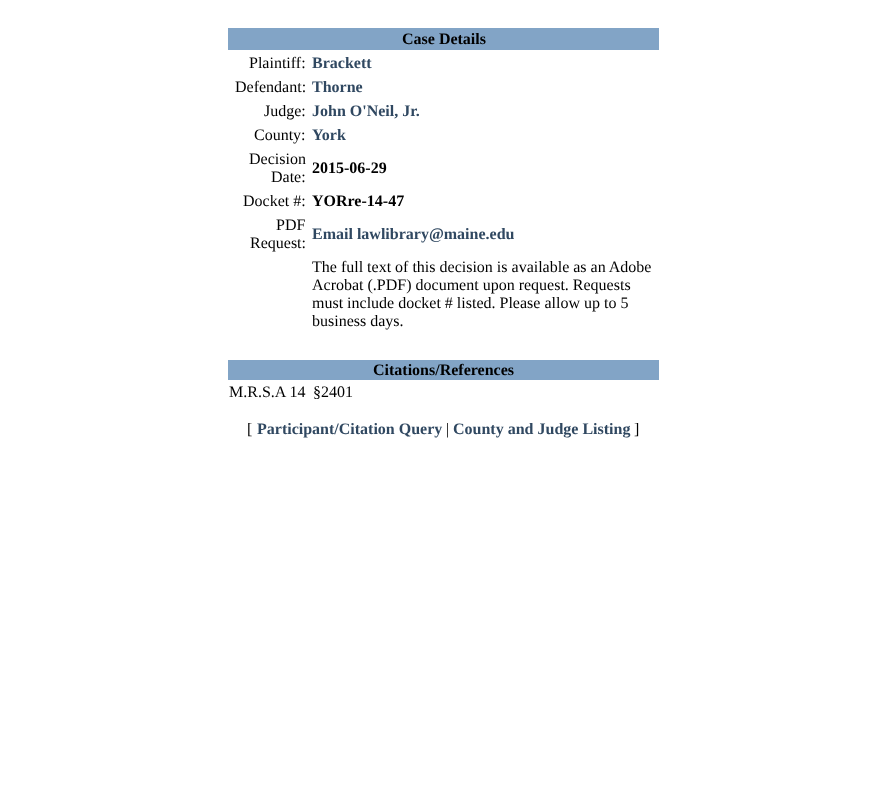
<svg xmlns="http://www.w3.org/2000/svg" width="887" height="806">
	<rect width="100%" height="100%" fill="#FFFFFF" />
	<rect x="228" y="28" width="431" height="22" fill="#82A4C6" />
	<text x="402" y="44" font-family="Liberation Serif" font-size="16" font-weight="700" fill="#000000">Case Details</text>
	<text x="249" y="68" font-family="Liberation Serif" font-size="16" fill="#000000">Plaintiff:</text>
	<text x="312" y="68" font-family="Liberation Serif" font-size="16" font-weight="700" fill="#304861">Brackett</text>
	<text x="235" y="92" font-family="Liberation Serif" font-size="16" fill="#000000">Defendant:</text>
	<text x="312" y="92" font-family="Liberation Serif" font-size="16" font-weight="700" fill="#304861">Thorne</text>
	<text x="264" y="116" font-family="Liberation Serif" font-size="16" fill="#000000">Judge:</text>
	<text x="312" y="116" font-family="Liberation Serif" font-size="16" font-weight="700" fill="#304861">John O'Neil, Jr.</text>
	<text x="254" y="140" font-family="Liberation Serif" font-size="16" fill="#000000">County:</text>
	<text x="312" y="140" font-family="Liberation Serif" font-size="16" font-weight="700" fill="#304861">York</text>
	<g font-family="Liberation Serif" font-size="16" fill="#000000">
		<text x="249" y="164">Decision</text>
		<text x="271" y="182">Date:</text>
	</g>
	<text x="312" y="173" font-family="Liberation Serif" font-size="16" font-weight="700" fill="#000000">2015-06-29</text>
	<text x="243" y="206" font-family="Liberation Serif" font-size="16" fill="#000000">Docket #:</text>
	<text x="312" y="206" font-family="Liberation Serif" font-size="16" font-weight="700" fill="#000000">YORre-14-47</text>
	<g font-family="Liberation Serif" font-size="16" fill="#000000">
		<text x="276" y="230">PDF</text>
		<text x="250" y="248">Request:</text>
	</g>
	<text x="312" y="239" font-family="Liberation Serif" font-size="16" font-weight="700" fill="#304861">Email lawlibrary@maine.edu</text>
	<g font-family="Liberation Serif" font-size="16" fill="#000000">
		<text x="312" y="272">The full text of this decision is available as an Adobe</text>
		<text x="312" y="290">Acrobat (.PDF) document upon request. Requests</text>
		<text x="312" y="308">must include docket # listed. Please allow up to 5</text>
		<text x="312" y="326">business days.</text>
	</g>
	<rect x="228" y="360" width="431" height="20" fill="#82A4C6" />
	<text x="373" y="375" font-family="Liberation Serif" font-size="16" font-weight="700" fill="#000000">Citations/References</text>
	<g font-family="Liberation Serif" font-size="16" fill="#000000">
		<text x="229" y="397">M.R.S.A 14</text>
		<text x="313" y="397">§2401</text>
		<text x="247" y="434">[</text>
	</g>
	<text x="257" y="434" font-family="Liberation Serif" font-size="16" font-weight="700" fill="#304861">Participant/Citation Query</text>
	<text x="446" y="434" font-family="Liberation Serif" font-size="16" fill="#000000">|</text>
	<text x="453" y="434" font-family="Liberation Serif" font-size="16" font-weight="700" fill="#304861">County and Judge Listing</text>
	<text x="634" y="434" font-family="Liberation Serif" font-size="16" fill="#000000">]</text>
</svg>
